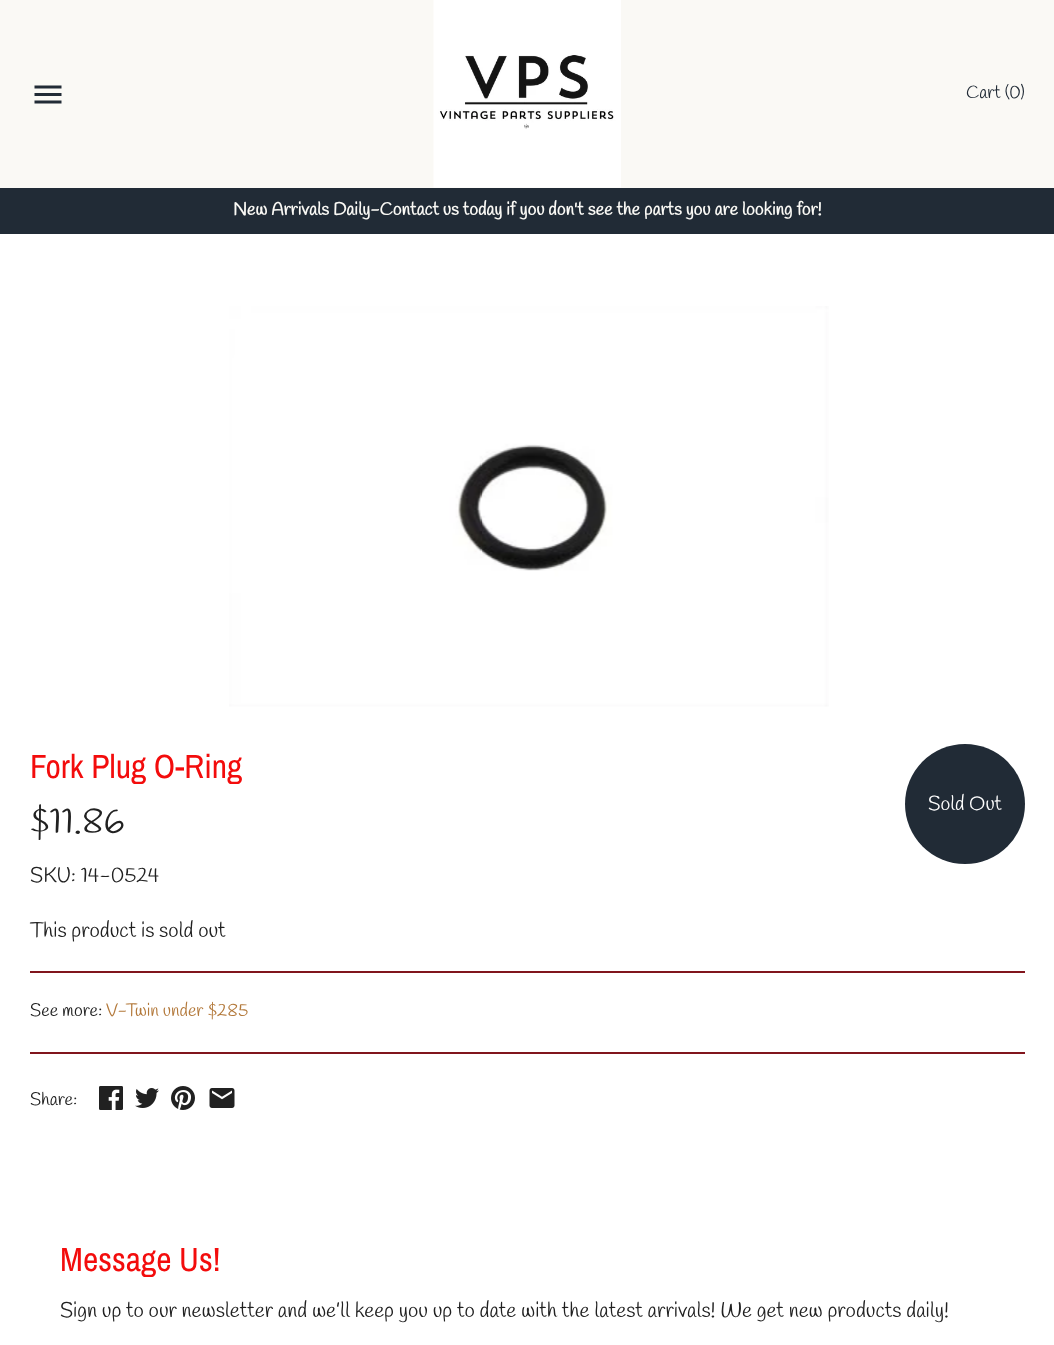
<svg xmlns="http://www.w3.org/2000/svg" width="1054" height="1345">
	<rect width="100%" height="100%" fill="#FFFFFF" />
	<rect x="0" y="0" width="1054" height="188" fill="#FAF9F5" />
	<image x="34" y="85" width="28" height="19" href="assets/img1.png" />
	<image x="433" y="0" width="188" height="188" href="assets/img2.png" />
	<text x="966" y="98" font-family="Handlee" font-size="17.85" fill="#212B36">Cart (0)</text>
	<rect x="0" y="188" width="1054" height="46" fill="#212B36" />
	<text x="233" y="215" font-family="Handlee" font-size="17.85" font-weight="700" fill="#FAF9F5">New Arrivals Daily-Contact us today if you don't see the parts you are looking for!</text>
	<image x="229" y="306" width="600" height="401" href="assets/img3.png" />
	<text x="30" y="778" font-family="Archivo Narrow" font-size="33.5" fill="#F30C0C">Fork Plug O-Ring</text>
	<circle cx="965" cy="804" r="60" fill="#212B36" />
	<text x="928" y="810" font-family="Handlee" font-size="20" fill="#FFFFFF">Sold Out</text>
	<text x="30" y="833" font-family="Handlee" font-size="36" fill="#212121">$11.86</text>
	<g font-family="Handlee" font-size="21" fill="#212121">
		<text x="30" y="882">SKU: 14-0524</text>
		<text x="30" y="937">This product is sold out</text>
	</g>
	<rect x="30" y="971" width="995" height="2" fill="#81151D" />
	<text x="30" y="1016" font-family="Handlee" font-size="17.85" fill="#212121">See more:</text>
	<text x="106" y="1016" font-family="Handlee" font-size="17.85" fill="#B3793B">V-Twin under $285</text>
	<rect x="30" y="1052" width="995" height="2" fill="#81151D" />
	<text x="30" y="1105" font-family="Handlee" font-size="17.85" fill="#212121">Share:</text>
	<image x="99" y="1086" width="24" height="24" href="assets/img4.png" />
	<image x="135" y="1088" width="24" height="20" href="assets/img5.png" />
	<image x="171" y="1086" width="24" height="24" href="assets/img6.png" />
	<image x="209" y="1088" width="26" height="20" href="assets/img7.png" />
	<text x="60" y="1271" font-family="Archivo Narrow" font-size="33.5" fill="#F30C0C">Message Us!</text>
	<text x="60" y="1317" font-family="Handlee" font-size="21" fill="#212121">Sign up to our newsletter and we’ll keep you up to date with the latest arrivals! We get new products daily!</text>
</svg>
